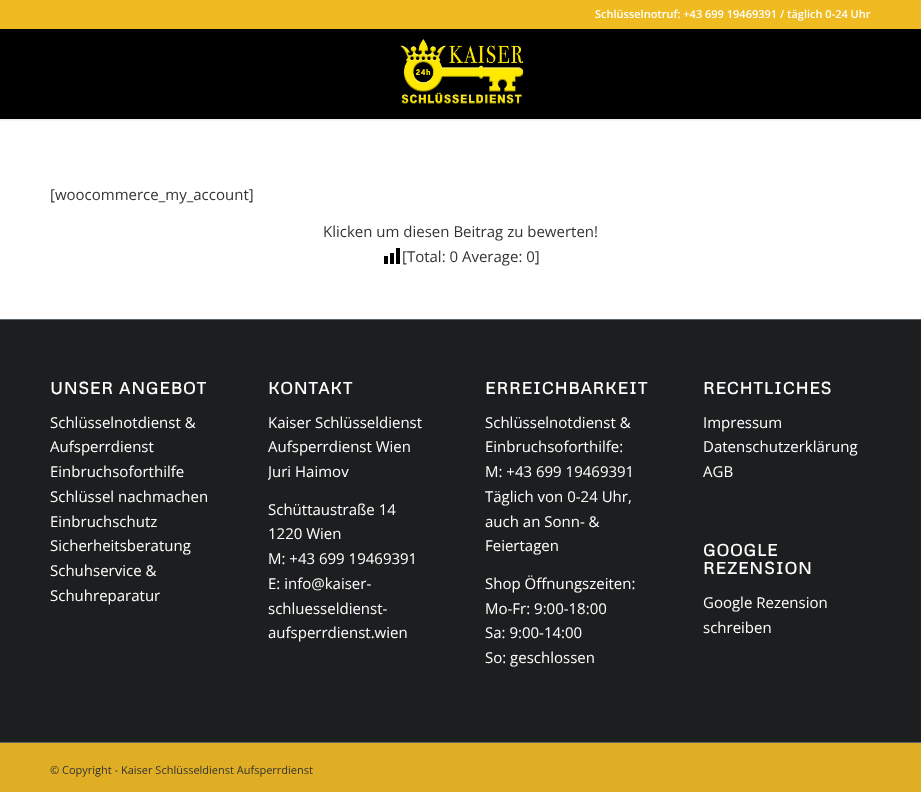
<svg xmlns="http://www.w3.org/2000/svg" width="921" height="792">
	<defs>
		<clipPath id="clip1"><rect x="268" y="365" width="168" height="293" /></clipPath>
	</defs>
	<rect width="100%" height="100%" fill="#FFFFFF" />
	<rect x="-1" y="-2" width="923" height="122" fill="#000000" fill-opacity="0.1" filter="blur(1px)" />
	<rect x="0" y="0" width="921" height="29" fill="#EFBB20" />
	<text x="595" y="18" font-family="Open Sans" font-size="11" font-weight="600" fill="#FFFFFF">Schlüsselnotruf: +43 699 19469391 / täglich 0-24 Uhr</text>
	<rect x="0" y="29" width="921" height="90" fill="#000000" />
	<image x="391" y="39" width="133" height="77" href="assets/img1.png" />
	<g font-family="Open Sans" font-size="15" fill="#333333">
		<text x="50" y="200">[woocommerce_my_account]</text>
		<text x="323" y="237">Klicken um diesen Beitrag zu bewerten!</text>
	</g>
	<image x="384" y="248" width="16" height="16" href="assets/img2.png" />
	<text x="402" y="262" font-family="Open Sans" font-size="15" fill="#333333">[Total: 0 Average: 0]</text>
	<rect x="0" y="320" width="921" height="422" fill="#1D1E1F" />
	<rect x="0" y="319" width="921" height="1" fill="#5B646B" />
	<text x="50" y="394" font-family="Metrophobic" font-size="16.5" font-weight="700" letter-spacing="1" fill="#FFFFFF">UNSER ANGEBOT</text>
	<g font-family="Open Sans" font-size="15" fill="#FFFFFF">
		<text x="50" y="428">Schlüsselnotdienst &amp;</text>
		<text x="50" y="452">Aufsperrdienst</text>
		<text x="50" y="477">Einbruchsoforthilfe</text>
		<text x="50" y="502">Schlüssel nachmachen</text>
		<text x="50" y="527">Einbruchschutz</text>
		<text x="50" y="551">Sicherheitsberatung</text>
		<text x="50" y="576">Schuhservice &amp;</text>
		<text x="50" y="601">Schuhreparatur</text>
	</g>
	<text x="268" y="394" font-family="Metrophobic" font-size="16.5" font-weight="700" letter-spacing="1" fill="#FFFFFF">KONTAKT</text>
	<g font-family="Open Sans" font-size="15" fill="#FFFFFF">
		<text x="268" y="428">Kaiser Schlüsseldienst</text>
		<text x="268" y="452">Aufsperrdienst Wien</text>
	</g>
	<g clip-path="url(#clip1)">
		<text x="268" y="477" font-family="Open Sans" font-size="15" fill="#FFFFFF">Juri Haimov</text>
	</g>
	<g font-family="Open Sans" font-size="15" fill="#FFFFFF">
		<text x="268" y="515">Schüttaustraße 14</text>
		<text x="268" y="539">1220 Wien</text>
		<text x="268" y="564">M: +43 699 19469391</text>
		<text x="268" y="589">E: info@kaiser-</text>
		<text x="268" y="614">schluesseldienst-</text>
		<text x="268" y="638">aufsperrdienst.wien</text>
	</g>
	<text x="485" y="394" font-family="Metrophobic" font-size="16.5" font-weight="700" letter-spacing="1" fill="#FFFFFF">ERREICHBARKEIT</text>
	<g font-family="Open Sans" font-size="15" fill="#FFFFFF">
		<text x="485" y="428">Schlüsselnotdienst &amp;</text>
		<text x="485" y="452">Einbruchsoforthilfe:</text>
		<text x="485" y="477">M: +43 699 19469391</text>
		<text x="485" y="502">Täglich von 0-24 Uhr,</text>
		<text x="485" y="527">auch an Sonn- &amp;</text>
		<text x="485" y="551">Feiertagen</text>
		<text x="485" y="589">Shop Öffnungszeiten:</text>
		<text x="485" y="614">Mo-Fr: 9:00-18:00</text>
		<text x="485" y="638">Sa: 9:00-14:00</text>
		<text x="485" y="663">So: geschlossen</text>
	</g>
	<text x="703" y="394" font-family="Metrophobic" font-size="16.5" font-weight="700" letter-spacing="1" fill="#FFFFFF">RECHTLICHES</text>
	<g font-family="Open Sans" font-size="15" fill="#FFFFFF">
		<text x="703" y="428">Impressum</text>
		<text x="703" y="452">Datenschutzerklärung</text>
		<text x="703" y="477">AGB</text>
	</g>
	<g font-family="Metrophobic" font-size="16.5" font-weight="700" letter-spacing="1" fill="#FFFFFF">
		<text x="703" y="556">GOOGLE</text>
		<text x="703" y="574">REZENSION</text>
	</g>
	<g font-family="Open Sans" font-size="15" fill="#FFFFFF">
		<text x="703" y="608">Google Rezension</text>
		<text x="703" y="633">schreiben</text>
	</g>
	<rect x="0" y="743" width="921" height="49" fill="#E0AE24" />
	<rect x="0" y="742" width="921" height="1" fill="#5B646B" />
	<text x="50" y="774" font-family="Open Sans" font-size="11" fill="#333333">© Copyright - Kaiser Schlüsseldienst Aufsperrdienst</text>
</svg>
